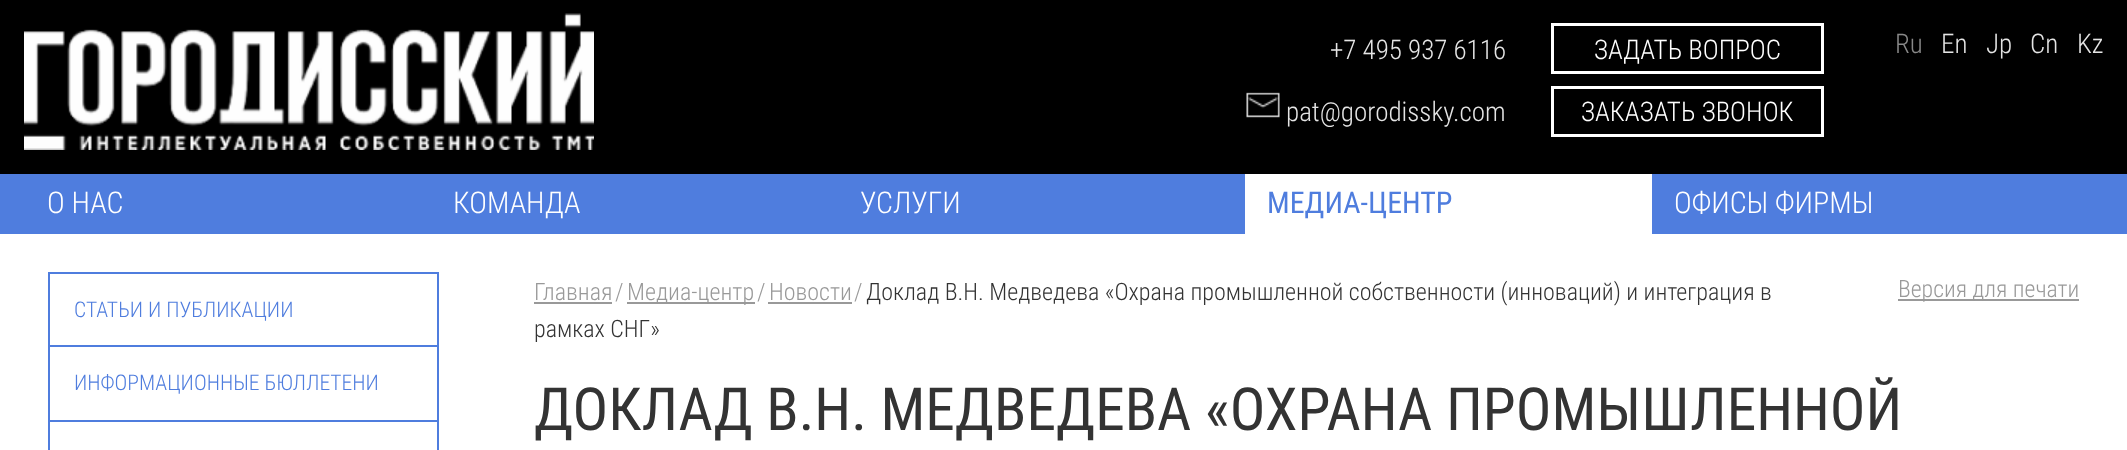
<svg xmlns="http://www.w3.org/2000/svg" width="2127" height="450">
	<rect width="100%" height="100%" fill="#FFFFFF" />
	<rect x="0" y="0" width="2127" height="174" fill="#000000" />
	<image x="24" y="13" width="570" height="137" href="assets/img1.png" />
	<text x="1330" y="59" font-family="Roboto Condensed" font-size="27" font-weight="300" fill="#E5E5E5">+7 495 937 6116</text>
	<image x="1246" y="92" width="34" height="26" href="assets/img2.png" />
	<text x="1286" y="121" font-family="Roboto Condensed" font-size="27" font-weight="300" fill="#E5E5E5">pat@gorodissky.com</text>
	<rect x="1552.5" y="24.5" width="270" height="48" fill="none" stroke="#FFFFFF" stroke-width="3" />
	<text x="1594" y="59" font-family="Roboto Condensed" font-size="27" font-weight="300" fill="#FFFFFF">ЗАДАТЬ ВОПРОС</text>
	<rect x="1552.5" y="87.5" width="270" height="48" fill="none" stroke="#FFFFFF" stroke-width="3" />
	<text x="1581" y="121" font-family="Roboto Condensed" font-size="27" font-weight="300" fill="#FFFFFF">ЗАКАЗАТЬ ЗВОНОК</text>
	<text x="1895" y="53" font-family="Roboto Condensed" font-size="27" font-weight="300" fill="#888888">Ru</text>
	<g font-family="Roboto Condensed" font-size="27" font-weight="300" fill="#E5E5E5">
		<text x="1941" y="53">En</text>
		<text x="1986" y="53">Jp</text>
		<text x="2030" y="53">Cn</text>
		<text x="2077" y="53">Kz</text>
	</g>
	<rect x="0" y="174" width="2127" height="60" fill="#4F7DDE" />
	<g font-family="Roboto Condensed" font-size="30" font-weight="300" fill="#FFFFFF">
		<text x="47" y="213">О НАС</text>
		<text x="453" y="213">КОМАНДА</text>
		<text x="860" y="213">УСЛУГИ</text>
	</g>
	<rect x="1245" y="174" width="407" height="60" fill="#FFFFFF" />
	<text x="1267" y="213" font-family="Roboto Condensed" font-size="30" fill="#4F7DDE">МЕДИА-ЦЕНТР</text>
	<text x="1674" y="213" font-family="Roboto Condensed" font-size="30" font-weight="300" fill="#FFFFFF">ОФИСЫ ФИРМЫ</text>
	<rect x="48" y="272" width="390" height="2" fill="#4F7DDE" />
	<rect x="437" y="272" width="2" height="73" fill="#4F7DDE" />
	<rect x="48" y="272" width="2" height="73" fill="#4F7DDE" />
	<text x="74" y="317" font-family="Roboto Condensed" font-size="21.6" font-weight="300" fill="#4F7DDE">СТАТЬИ И ПУБЛИКАЦИИ</text>
	<rect x="48" y="345" width="390" height="2" fill="#4F7DDE" />
	<rect x="437" y="345" width="2" height="75" fill="#4F7DDE" />
	<rect x="48" y="345" width="2" height="75" fill="#4F7DDE" />
	<text x="74" y="390" font-family="Roboto Condensed" font-size="21.6" font-weight="300" fill="#4F7DDE">ИНФОРМАЦИОННЫЕ БЮЛЛЕТЕНИ</text>
	<rect x="48" y="420" width="390" height="2" fill="#4F7DDE" />
	<rect x="437" y="420" width="2" height="30" fill="#4F7DDE" />
	<rect x="48" y="420" width="2" height="30" fill="#4F7DDE" />
	<text x="534" y="300" font-family="Roboto Condensed" font-size="24" font-weight="300" fill="#999999">Главная</text>
	<rect x="534" y="302" width="78" height="2" fill="#999999" />
	<text x="615" y="300" font-family="Roboto Condensed" font-size="24" font-weight="300" fill="#999999">/</text>
	<rect x="627" y="302" width="128" height="2" fill="#999999" />
	<g font-family="Roboto Condensed" font-size="24" font-weight="300" fill="#999999">
		<text x="627" y="300">Медиа-центр</text>
		<text x="757" y="300">/</text>
		<text x="769" y="300">Новости</text>
	</g>
	<rect x="768" y="302" width="84" height="2" fill="#999999" />
	<text x="854" y="300" font-family="Roboto Condensed" font-size="24" font-weight="300" fill="#999999">/</text>
	<g font-family="Roboto Condensed" font-size="24" font-weight="300" fill="#333333">
		<text x="866" y="300">Доклад В.Н. Медведева «Охрана промышленной собственности (инноваций) и интеграция в</text>
		<text x="534" y="337">рамках СНГ»</text>
	</g>
	<rect x="1898" y="299" width="181" height="2" fill="#999999" />
	<text x="1898" y="297" font-family="Roboto Condensed" font-size="23.75" font-weight="300" fill="#999999">Версия для печати</text>
	<text x="534" y="430" font-family="Roboto Condensed" font-size="59.4" fill="#333333">ДОКЛАД В.Н. МЕДВЕДЕВА «ОХРАНА ПРОМЫШЛЕННОЙ</text>
</svg>
